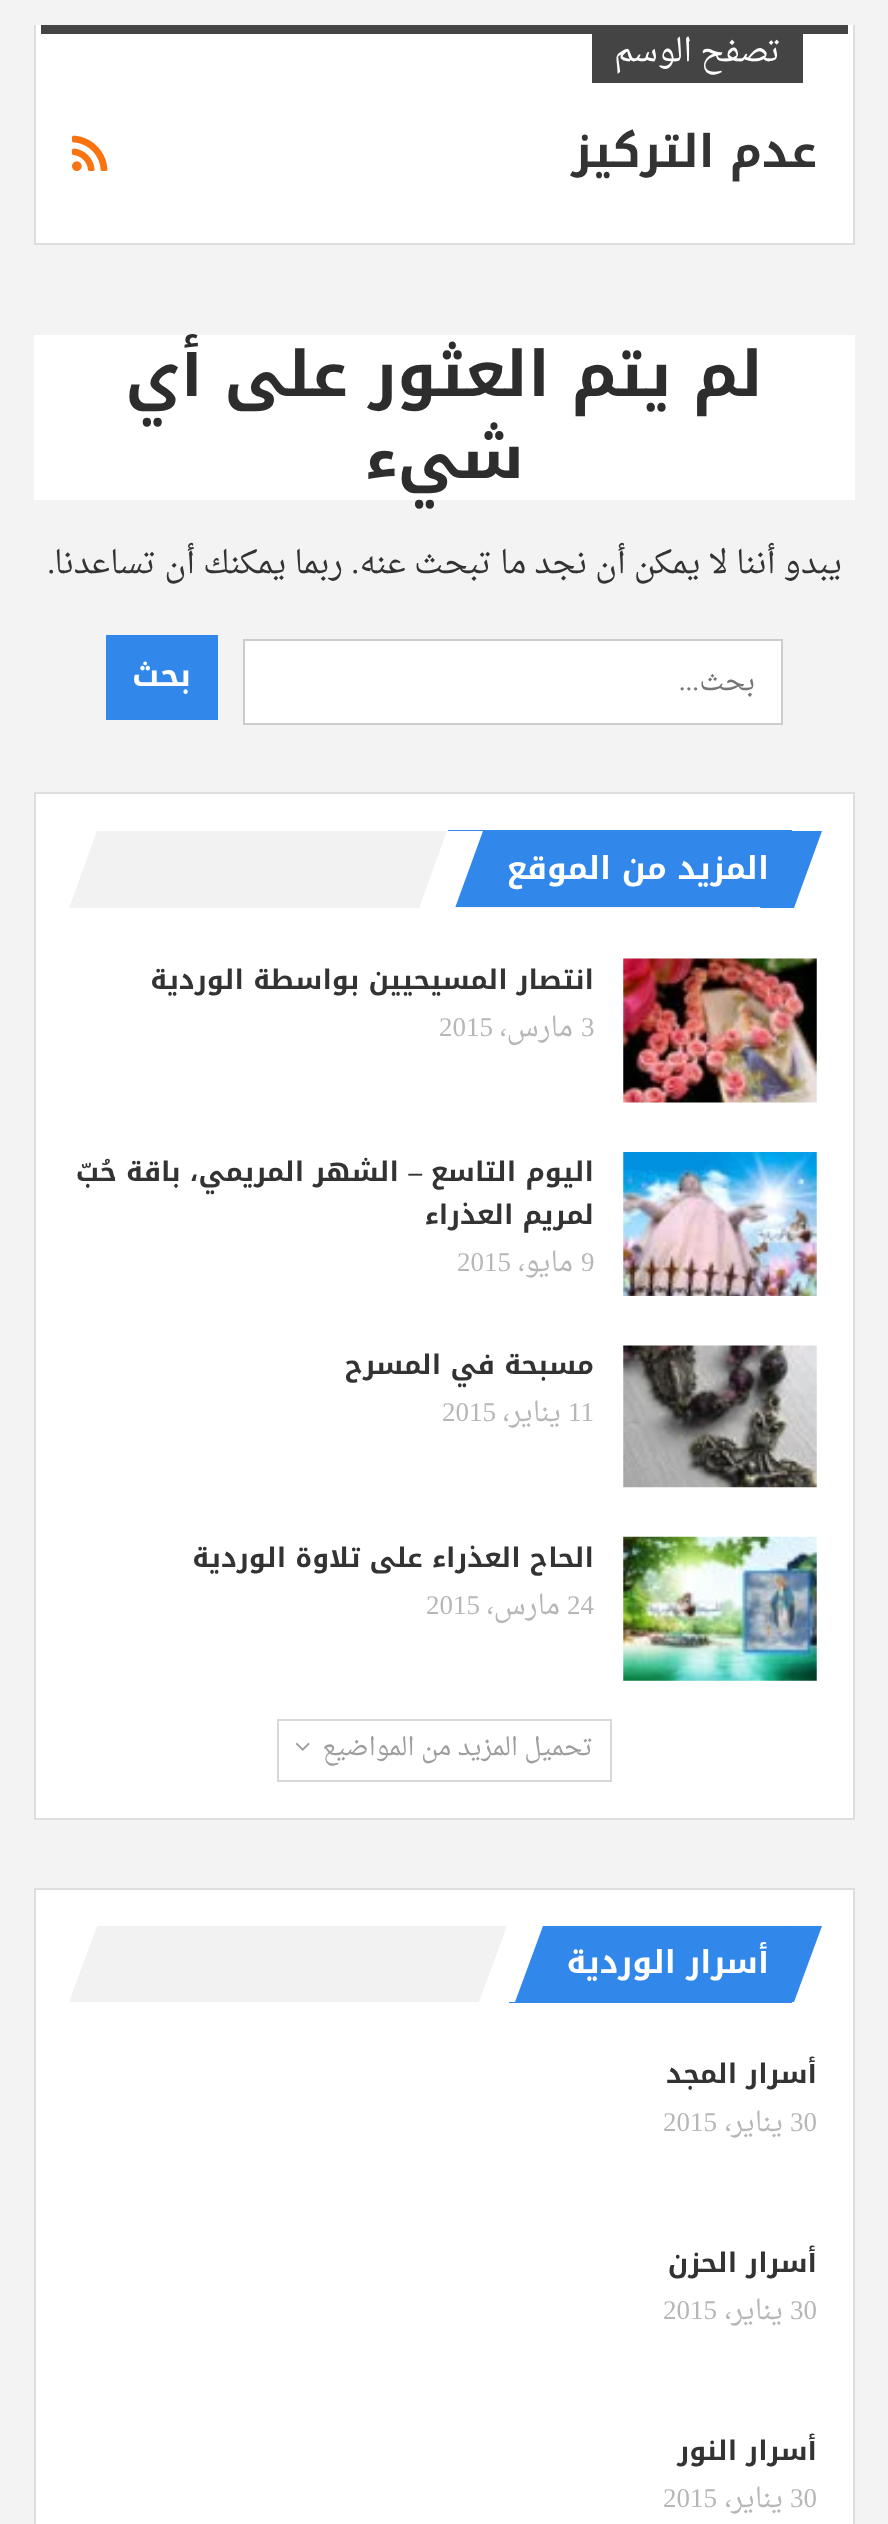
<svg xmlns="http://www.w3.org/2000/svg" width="888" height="2524">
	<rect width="100%" height="100%" fill="#F3F3F3" />
	<rect x="36" y="25" width="817" height="218" fill="#FFFFFF" />
	<rect x="853" y="25" width="2" height="220" fill="#DEDEDE" />
	<rect x="34" y="243" width="821" height="2" fill="#DEDEDE" />
	<rect x="34" y="25" width="2" height="220" fill="#DEDEDE" />
	<rect x="41" y="25" width="807" height="9" fill="#444444" />
	<rect x="592" y="34" width="211" height="49" fill="#444444" />
	<text x="781" y="61" font-family="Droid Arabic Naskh" font-size="31.5" direction="rtl" fill="#FFFFFF">تصفح الوسم</text>
	<text x="817" y="167" font-family="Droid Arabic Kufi" font-size="45" font-weight="700" direction="rtl" fill="#333333">عدم التركيز</text>
	<image x="72" y="135" width="36" height="36" href="assets/img1.png" />
	<rect x="34" y="335" width="821" height="165" fill="#FFFFFF" />
	<g font-family="Droid Arabic Kufi" font-size="63" font-weight="700" direction="rtl" fill="#2D2D2D">
		<text x="763" y="396">لم يتم العثور على أي</text>
		<text x="524" y="478">شيء</text>
	</g>
	<text x="842" y="573" font-family="Droid Arabic Naskh" font-size="31.5" direction="rtl" fill="#333333">يبدو أننا لا يمكن أن نجد ما تبحث عنه</text>
	<text x="359" y="573" font-family="Liberation Serif" font-size="31.5" direction="rtl" fill="#333333">.</text>
	<text x="343" y="573" font-family="Droid Arabic Naskh" font-size="31.5" direction="rtl" fill="#333333">ربما يمكنك أن تساعدنا</text>
	<text x="55" y="573" font-family="Liberation Serif" font-size="31.5" direction="rtl" fill="#333333">.</text>
	<rect x="244" y="640" width="538" height="84" fill="#FFFFFF" stroke="#CCCCCC" stroke-width="2" />
	<text x="755" y="690" font-family="Droid Arabic Naskh" font-size="27" direction="rtl" fill="#757575">بحث</text>
	<text x="699" y="690" font-family="Liberation Serif" font-size="27" direction="rtl" fill="#757575">...</text>
	<rect x="106" y="635" width="112" height="85" fill="#3187EA" />
	<text x="191" y="686" font-family="Droid Arabic Kufi" font-size="31.5" font-weight="700" direction="rtl" fill="#FFFFFF">بحث</text>
	<rect x="35" y="793" width="819" height="1026" fill="#FFFFFF" stroke="#DEDEDE" stroke-width="2" />
	<path d="M97 831H819L792 908H69Z" fill="#F2F2F2" />
	<rect x="448" y="830" width="344" height="77" fill="#3187EA" />
	<text x="769" y="879" font-family="Droid Arabic Kufi" font-size="31.5" font-weight="700" direction="rtl" fill="#FFFFFF">المزيد من الموقع</text>
	<path d="M788 831H822L794 908H760Z" fill="#3187EA" />
	<path d="M447 831H483L455 908H419Z" fill="#FFFFFF" />
	<image x="623" y="958" width="194" height="145" href="assets/img2.png" />
	<text x="594" y="989" font-family="Droid Arabic Kufi" font-size="27" font-weight="700" direction="rtl" fill="#333333">انتصار المسيحيين بواسطة الوردية</text>
	<text x="581" y="1036" font-family="Liberation Serif" font-size="27" fill="#B7B7B7">3</text>
	<text x="573" y="1036" font-family="Droid Arabic Naskh" font-size="27" direction="rtl" fill="#B7B7B7">مارس،</text>
	<text x="439" y="1036" font-family="Liberation Serif" font-size="27" fill="#B7B7B7">2015</text>
	<image x="623" y="1152" width="194" height="144" href="assets/img3.png" />
	<text x="594" y="1181" font-family="Droid Arabic Kufi" font-size="27" font-weight="700" direction="rtl" fill="#333333">اليوم التاسع</text>
	<text x="422" y="1181" font-family="Liberation Serif" font-size="27" font-weight="700" direction="rtl" fill="#333333">–</text>
	<g font-family="Droid Arabic Kufi" font-size="27" font-weight="700" direction="rtl" fill="#333333">
		<text x="399" y="1181">الشهر المريمي، باقة حُبّ</text>
		<text x="594" y="1224">لمريم العذراء</text>
	</g>
	<text x="581" y="1271" font-family="Liberation Serif" font-size="27" fill="#B7B7B7">9</text>
	<text x="573" y="1271" font-family="Droid Arabic Naskh" font-size="27" direction="rtl" fill="#B7B7B7">مايو،</text>
	<text x="457" y="1271" font-family="Liberation Serif" font-size="27" fill="#B7B7B7">2015</text>
	<image x="623" y="1345" width="194" height="143" href="assets/img4.png" />
	<text x="594" y="1374" font-family="Droid Arabic Kufi" font-size="27" font-weight="700" direction="rtl" fill="#333333">مسبحة في المسرح</text>
	<text x="568" y="1421" font-family="Liberation Serif" font-size="27" fill="#B7B7B7">11</text>
	<text x="561" y="1421" font-family="Droid Arabic Naskh" font-size="27" direction="rtl" fill="#B7B7B7">يناير،</text>
	<text x="442" y="1421" font-family="Liberation Serif" font-size="27" fill="#B7B7B7">2015</text>
	<image x="623" y="1536" width="194" height="145" href="assets/img5.png" />
	<text x="594" y="1567" font-family="Droid Arabic Kufi" font-size="27" font-weight="700" direction="rtl" fill="#333333">الحاح العذراء على تلاوة الوردية</text>
	<text x="567" y="1614" font-family="Liberation Serif" font-size="27" fill="#B7B7B7">24</text>
	<text x="560" y="1614" font-family="Droid Arabic Naskh" font-size="27" direction="rtl" fill="#B7B7B7">مارس،</text>
	<text x="426" y="1614" font-family="Liberation Serif" font-size="27" fill="#B7B7B7">2015</text>
	<rect x="278" y="1720" width="333" height="61" fill="none" stroke="#D8D8D8" stroke-width="2" />
	<text x="593" y="1755" font-family="Droid Arabic Naskh" font-size="24.75" direction="rtl" fill="#9E9E9E">تحميل المزيد من المواضيع</text>
	<image x="295" y="1742" width="15" height="9" href="assets/img6.png" />
	<rect x="35" y="1889" width="819" height="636" fill="#FFFFFF" stroke="#DEDEDE" stroke-width="2" />
	<path d="M97 1926H819L792 2002H69Z" fill="#F2F2F2" />
	<rect x="509" y="1926" width="283" height="77" fill="#3187EA" />
	<text x="769" y="1973" font-family="Droid Arabic Kufi" font-size="31.5" font-weight="700" direction="rtl" fill="#FFFFFF">أسرار الوردية</text>
	<path d="M788 1926H822L794 2002H760Z" fill="#3187EA" />
	<path d="M507 1926H543L515 2002H479Z" fill="#FFFFFF" />
	<text x="817" y="2083" font-family="Droid Arabic Kufi" font-size="27" font-weight="700" direction="rtl" fill="#333333">أسرار المجد</text>
	<text x="790" y="2131" font-family="Liberation Serif" font-size="27" fill="#B7B7B7">30</text>
	<text x="783" y="2131" font-family="Droid Arabic Naskh" font-size="27" direction="rtl" fill="#B7B7B7">يناير،</text>
	<text x="663" y="2131" font-family="Liberation Serif" font-size="27" fill="#B7B7B7">2015</text>
	<text x="817" y="2272" font-family="Droid Arabic Kufi" font-size="27" font-weight="700" direction="rtl" fill="#333333">أسرار الحزن</text>
	<text x="790" y="2319" font-family="Liberation Serif" font-size="27" fill="#B7B7B7">30</text>
	<text x="783" y="2319" font-family="Droid Arabic Naskh" font-size="27" direction="rtl" fill="#B7B7B7">يناير،</text>
	<text x="663" y="2319" font-family="Liberation Serif" font-size="27" fill="#B7B7B7">2015</text>
	<text x="817" y="2460" font-family="Droid Arabic Kufi" font-size="27" font-weight="700" direction="rtl" fill="#333333">أسرار النور</text>
	<text x="790" y="2507" font-family="Liberation Serif" font-size="27" fill="#B7B7B7">30</text>
	<text x="783" y="2507" font-family="Droid Arabic Naskh" font-size="27" direction="rtl" fill="#B7B7B7">يناير،</text>
	<text x="663" y="2507" font-family="Liberation Serif" font-size="27" fill="#B7B7B7">2015</text>
</svg>
